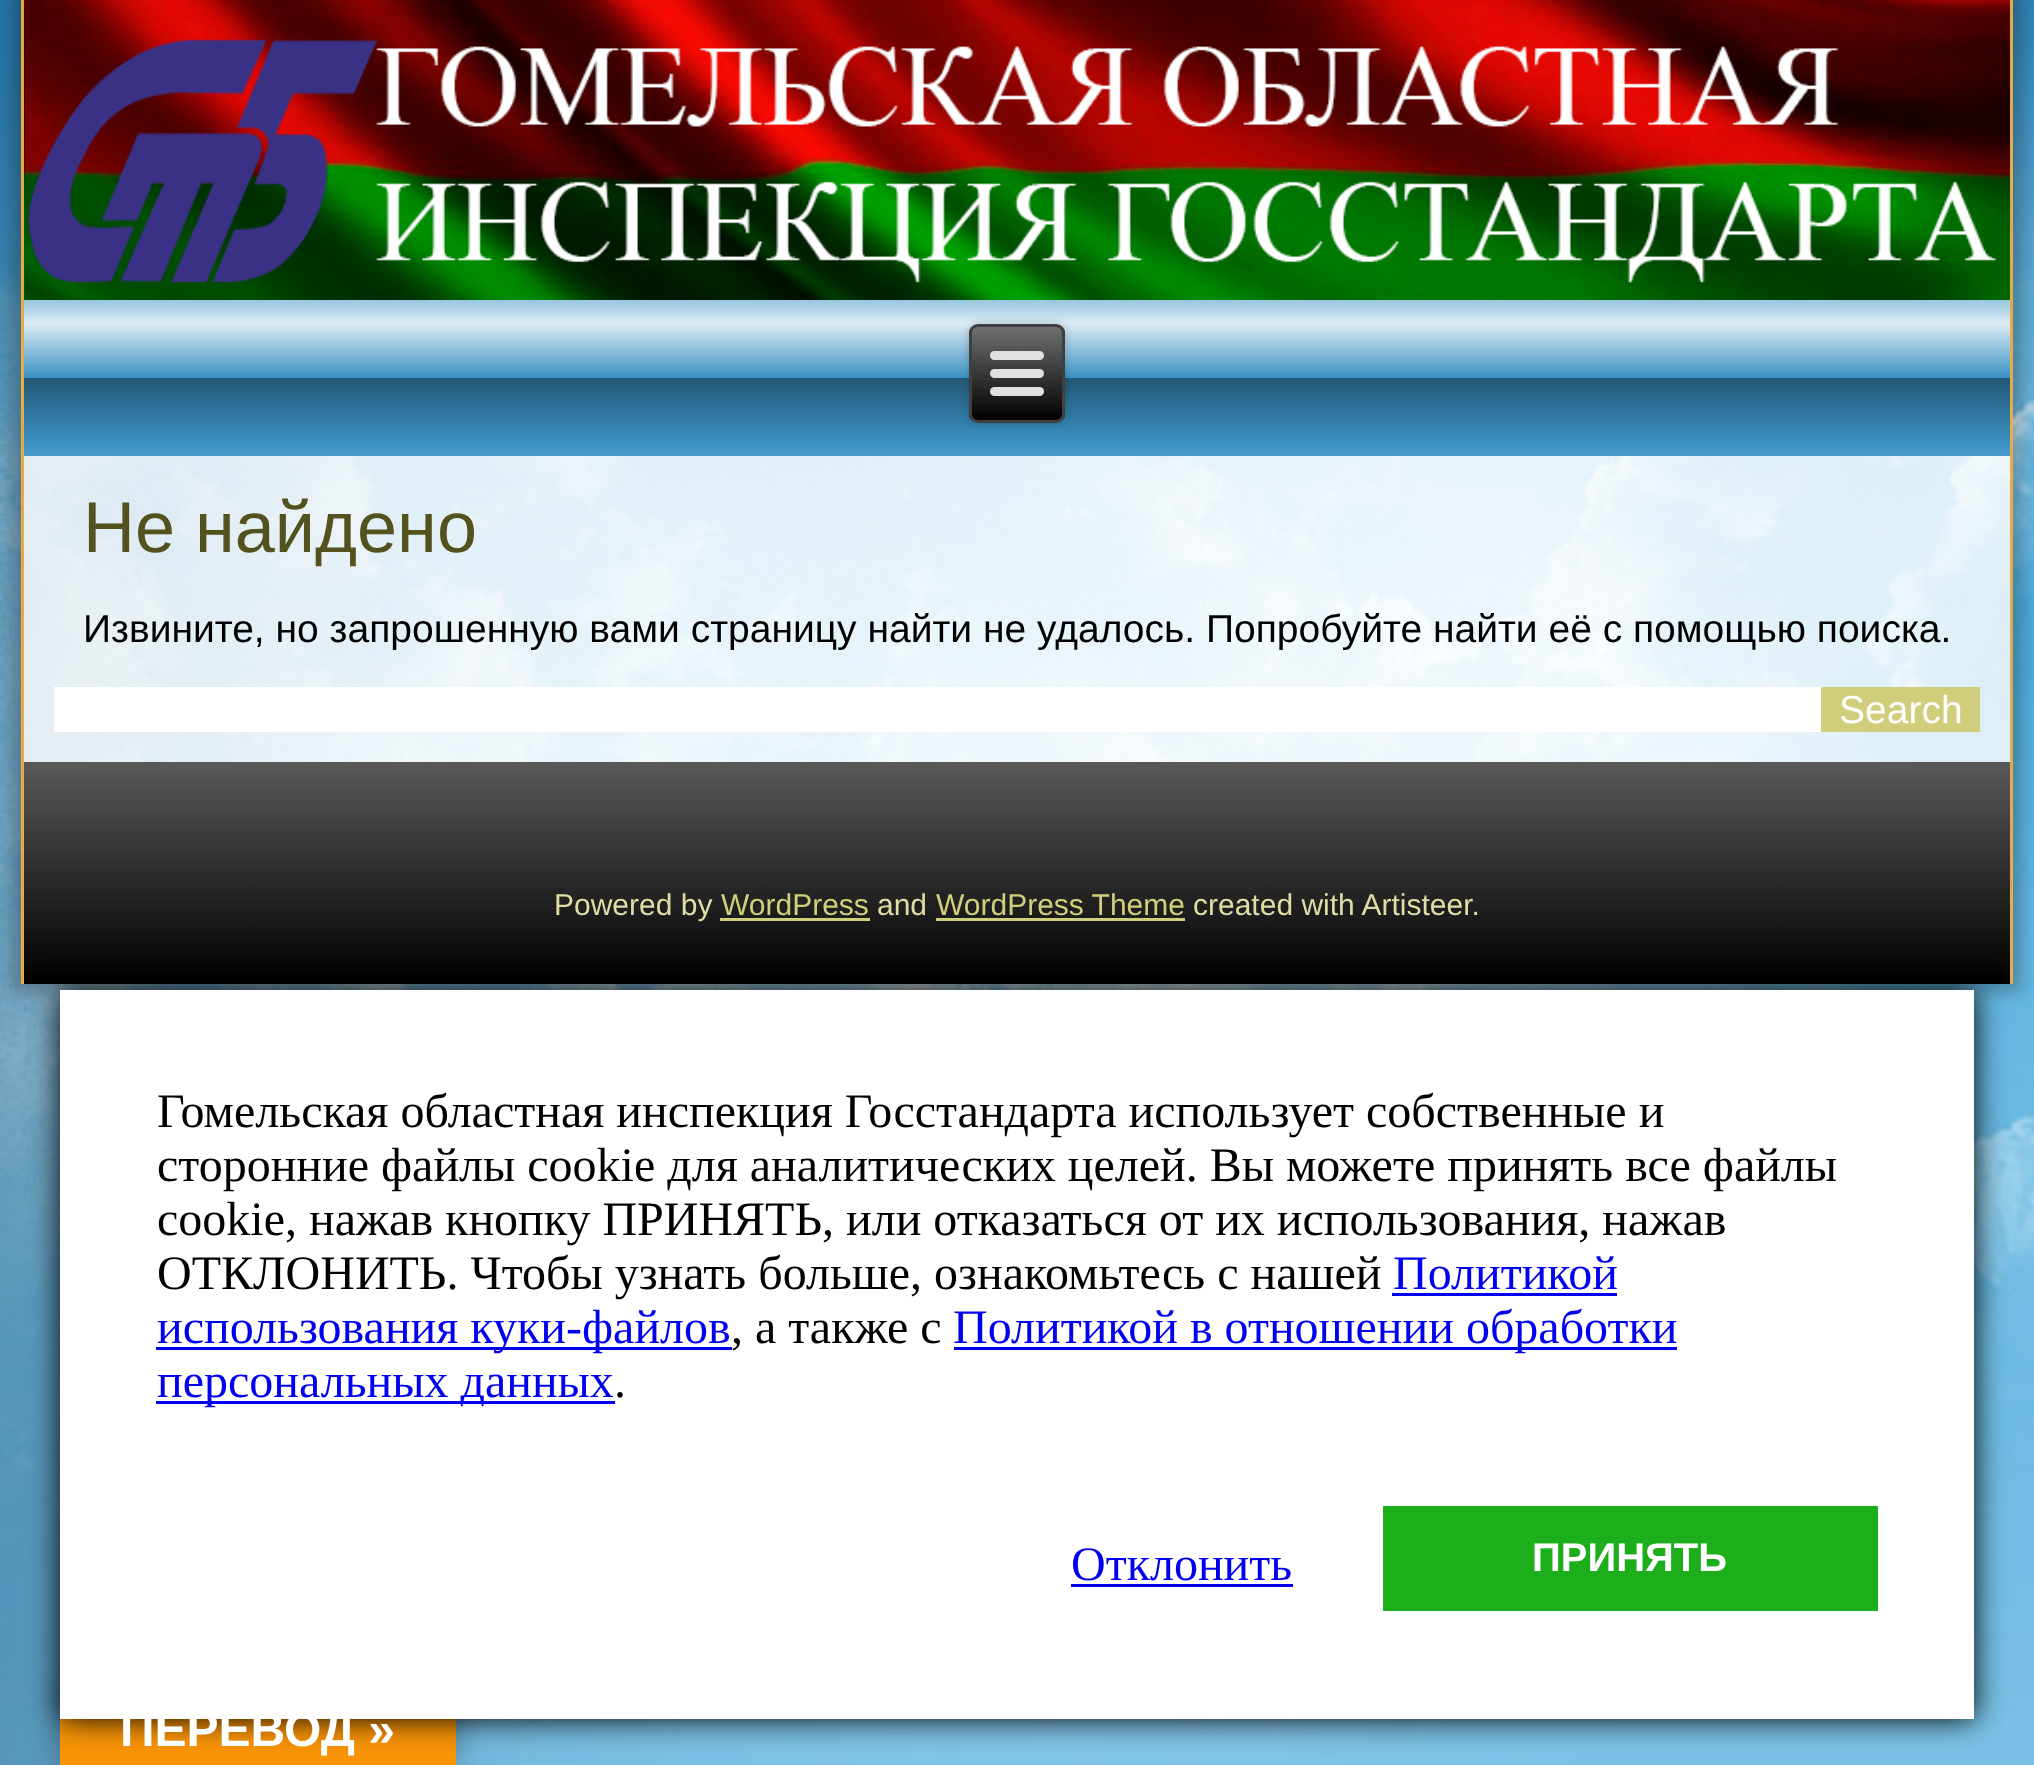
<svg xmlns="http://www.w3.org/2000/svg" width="2034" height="1765">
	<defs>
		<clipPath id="clip1"><path d="M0 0H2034V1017H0ZM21 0H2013V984H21Z" clip-rule="evenodd" /></clipPath>
		<linearGradient id="g1" gradientUnits="userSpaceOnUse" x1="1017" y1="300" x2="1017" y2="456"><stop offset="0" stop-color="#99C6E1" /><stop offset="0.15" stop-color="#DCEBF4" /><stop offset="0.5" stop-color="#3B92C4" /><stop offset="0.5" stop-color="#235876" /><stop offset="0.92" stop-color="#3B92C4" /><stop offset="1" stop-color="#4A9BC9" /></linearGradient>
		<clipPath id="clip2"><rect x="969" y="324" width="96" height="99" rx="9" /></clipPath>
		<linearGradient id="g2" gradientUnits="userSpaceOnUse" x1="1017" y1="327" x2="1017" y2="420"><stop offset="0" stop-color="#707070" /><stop offset="1" stop-color="#000000" /></linearGradient>
		<linearGradient id="g3" gradientUnits="userSpaceOnUse" x1="1017" y1="762" x2="1017" y2="984"><stop offset="0" stop-color="#595959" /><stop offset="1" stop-color="#000000" /></linearGradient>
	</defs>
	<rect width="100%" height="100%" fill="#FFFFFF" />
	<image x="0" y="0" width="2034" height="1765" href="assets/img1.png" />
	<g clip-path="url(#clip1)">
		<rect x="12" y="-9" width="2010" height="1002" fill="#000000" fill-opacity="0.24" filter="blur(7.5px)" />
	</g>
	<rect x="21" y="0" width="1992" height="984" fill="#FFFFFF" fill-opacity="0.8" />
	<rect x="2010" y="0" width="3" height="984" fill="#E79B18" fill-opacity="0.8" />
	<rect x="21" y="0" width="3" height="984" fill="#E79B18" fill-opacity="0.8" />
	<image x="24" y="0" width="1986" height="300" href="assets/img2.png" />
	<rect x="24" y="300" width="1986" height="156" fill="url(#g1)" />
	<rect x="969" y="324" width="96" height="99" rx="9" fill="#000000" fill-opacity="0.2" filter="blur(4.5px)" />
	<g clip-path="url(#clip2)">
		<rect x="969" y="327" width="96" height="93" fill="url(#g2)" />
	</g>
	<rect x="970.5" y="325.5" width="93" height="96" rx="7.5" fill="none" stroke="#404040" stroke-width="3" />
	<rect x="990" y="351" width="54" height="9" rx="4.5" fill="#E0E0E0" />
	<rect x="990" y="369" width="54" height="9" rx="4.5" fill="#E0E0E0" />
	<rect x="990" y="387" width="54" height="9" rx="4.5" fill="#E0E0E0" />
	<text x="83" y="552" font-family="Liberation Sans" font-size="72" fill="#53511D">Не найдено</text>
	<text x="83" y="642" font-family="Liberation Sans" font-size="39" fill="#000000">Извините, но запрошенную вами страницу найти не удалось. Попробуйте найти её с помощью поиска.</text>
	<rect x="54" y="687" width="1767" height="45" fill="#FFFFFF" />
	<rect x="1821" y="687" width="159" height="45" fill="#D1CE7B" />
	<text x="1839" y="723" font-family="Liberation Sans" font-size="39" fill="#FFFFFF">Search</text>
	<rect x="24" y="762" width="1986" height="222" fill="url(#g3)" />
	<text x="554" y="915" font-family="Liberation Sans" font-size="30" fill="#DFDDA4">Powered by</text>
	<text x="721" y="915" font-family="Liberation Sans" font-size="30" fill="#D1CE7B">WordPress</text>
	<rect x="720" y="918" width="150" height="3" fill="#D1CE7B" />
	<text x="877" y="915" font-family="Liberation Sans" font-size="30" fill="#DFDDA4">and</text>
	<text x="936" y="915" font-family="Liberation Sans" font-size="30" fill="#D1CE7B">WordPress Theme</text>
	<rect x="936" y="918" width="249" height="3" fill="#D1CE7B" />
	<text x="1193" y="915" font-family="Liberation Sans" font-size="30" fill="#DFDDA4">created with Artisteer.</text>
	<rect x="60" y="1686" width="396" height="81" fill="#000000" fill-opacity="0.3" filter="blur(13.5px)" />
	<rect x="60" y="1719" width="396" height="46" fill="#F89406" />
	<rect x="60" y="990" width="1914" height="729" fill="#000000" filter="blur(15px)" />
	<rect x="60" y="990" width="1914" height="729" fill="#FFFFFF" />
	<g font-family="Liberation Serif" font-size="48" fill="#000000">
		<text x="157" y="1127">Гомельская областная инспекция Госстандарта использует собственные и</text>
		<text x="157" y="1181">сторонние файлы cookie для аналитических целей. Вы можете принять все файлы</text>
		<text x="157" y="1235">cookie, нажав кнопку ПРИНЯТЬ, или отказаться от их использования, нажав</text>
		<text x="157" y="1289">ОТКЛОНИТЬ. Чтобы узнать больше, ознакомьтесь с нашей</text>
	</g>
	<text x="1393" y="1289" font-family="Liberation Serif" font-size="48" fill="#0000EE">Политикой</text>
	<rect x="1392" y="1293" width="225" height="3" fill="#0000EE" />
	<rect x="156" y="1347" width="576" height="3" fill="#0000EE" />
	<text x="157" y="1343" font-family="Liberation Serif" font-size="48" fill="#0000EE">использования куки-файлов</text>
	<text x="731" y="1343" font-family="Liberation Serif" font-size="48" fill="#000000">, а также с</text>
	<rect x="954" y="1347" width="723" height="3" fill="#0000EE" />
	<text x="953" y="1343" font-family="Liberation Serif" font-size="48" fill="#0000EE">Политикой в отношении обработки</text>
	<rect x="156" y="1401" width="459" height="3" fill="#0000EE" />
	<text x="157" y="1397" font-family="Liberation Serif" font-size="48" fill="#0000EE">персональных данных</text>
	<text x="614" y="1397" font-family="Liberation Serif" font-size="48" fill="#000000">.</text>
	<text x="1071" y="1580" font-family="Liberation Serif" font-size="48" fill="#0000EE">Отклонить</text>
	<rect x="1071" y="1584" width="222" height="3" fill="#0000EE" />
	<rect x="1383" y="1506" width="495" height="105" fill="#1DAE1C" />
	<text x="1532" y="1571" font-family="Liberation Sans" font-size="40" font-weight="700" fill="#FFFFFF">ПРИНЯТЬ</text>
	<text x="120" y="1746" font-family="Liberation Sans" font-size="48" font-weight="700" fill="#FFFFFF">ПЕРЕВОД »</text>
</svg>
